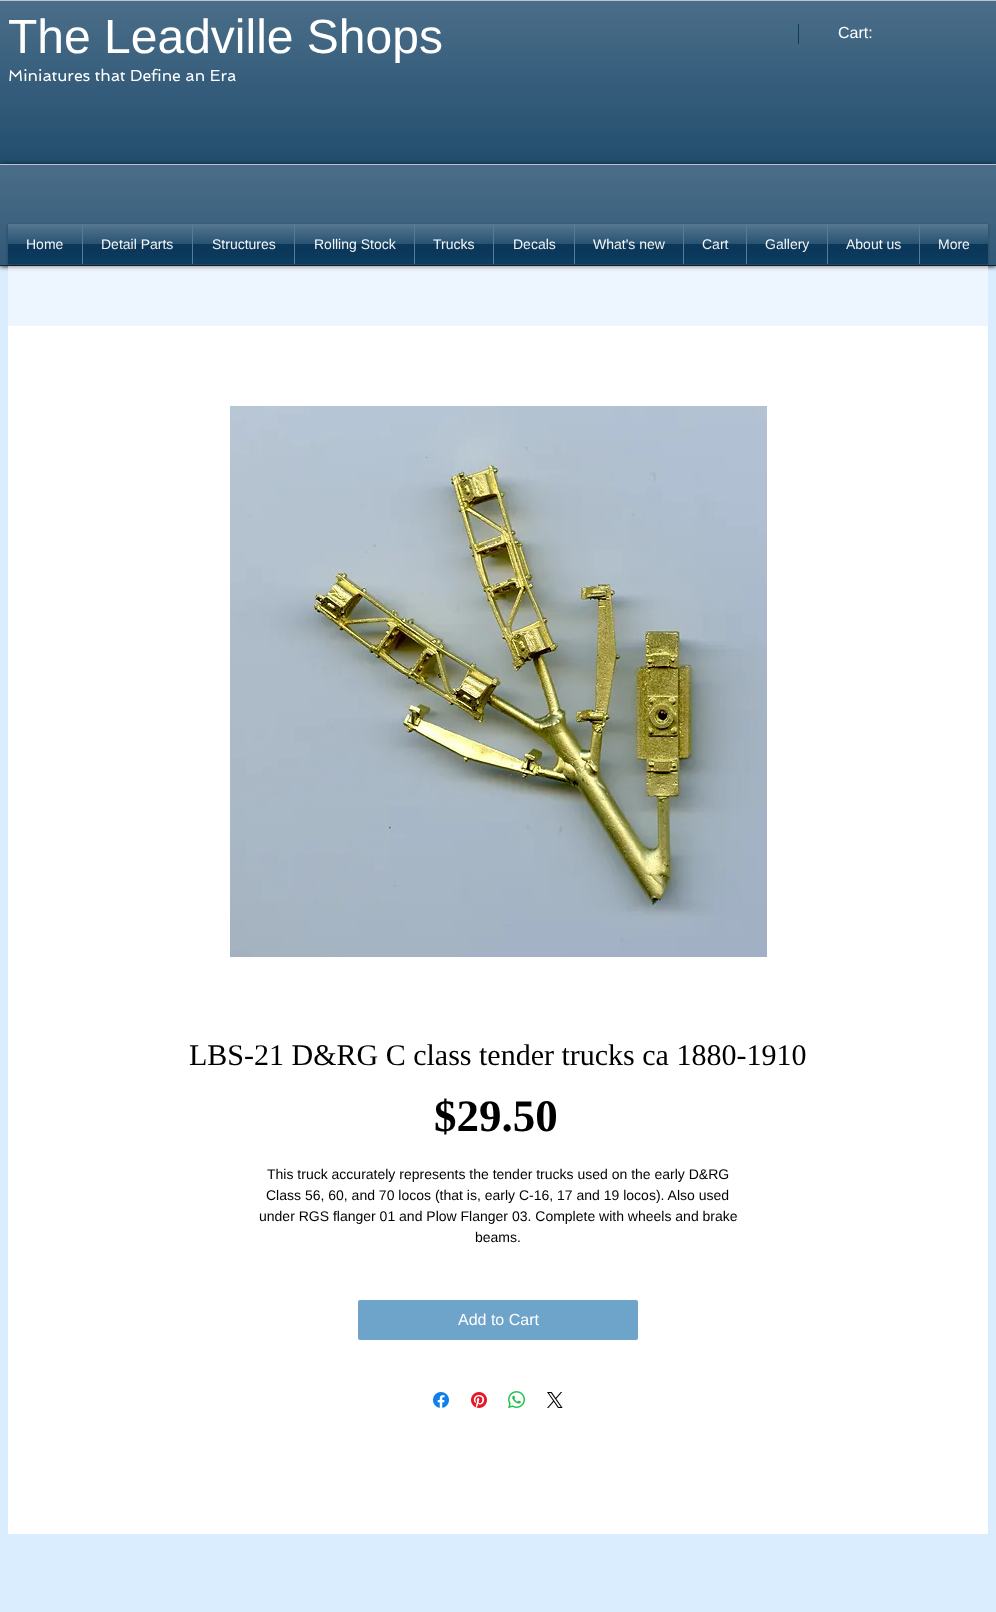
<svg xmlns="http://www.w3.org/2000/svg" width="996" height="1612">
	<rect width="100%" height="100%" fill="#DAEDFF" />
	<rect x="0" y="0" width="996" height="266" fill="#000000" fill-opacity="0.6" filter="blur(2.5px)" />
	<rect x="0" y="1" width="996" height="163" fill="#0C3C60" />
	<image x="0" y="1" width="996" height="163" href="assets/img1.png" />
	<rect x="0" y="0" width="996" height="1" fill="#B7C5D0" />
	<text x="8" y="53" font-family="Liberation Sans" font-size="48" fill="#FFFFFF">The Leadville Shops</text>
	<text x="8" y="81" font-family="Spinnaker" font-size="16" fill="#FFFFFF">Miniatures that Define an Era</text>
	<rect x="798" y="24" width="1" height="20" fill="#0C3C60" />
	<text x="838" y="38" font-family="Liberation Sans" font-size="16" fill="#FFFFFF">Cart:</text>
	<rect x="0" y="164" width="996" height="102" fill="#000000" fill-opacity="0.6" filter="blur(2.5px)" />
	<rect x="0" y="165" width="996" height="100" fill="#0C3C60" />
	<image x="0" y="165" width="996" height="100" href="assets/img2.png" />
	<rect x="0" y="265" width="996" height="1" fill="#142430" />
	<rect x="0" y="164" width="996" height="1" fill="#B7C5D0" />
	<rect x="8" y="225" width="980" height="40" fill="#000000" fill-opacity="0.33" filter="blur(1.5px)" />
	<rect x="8" y="224" width="74" height="40" fill="#0C3C60" />
	<text x="26" y="249" font-family="Liberation Sans" font-size="14" fill="#FFFFFF">Home</text>
	<image x="8" y="224" width="74" height="34" href="assets/img3.png" />
	<rect x="83" y="224" width="109" height="40" fill="#0C3C60" />
	<rect x="82" y="224" width="1" height="40" fill="#567C99" />
	<text x="101" y="249" font-family="Liberation Sans" font-size="14" fill="#FFFFFF">Detail Parts</text>
	<image x="83" y="224" width="109" height="34" href="assets/img4.png" />
	<rect x="193" y="224" width="101" height="40" fill="#0C3C60" />
	<rect x="192" y="224" width="1" height="40" fill="#567C99" />
	<text x="212" y="249" font-family="Liberation Sans" font-size="14" fill="#FFFFFF">Structures</text>
	<image x="193" y="224" width="101" height="34" href="assets/img5.png" />
	<rect x="295" y="224" width="119" height="40" fill="#0C3C60" />
	<rect x="294" y="224" width="1" height="40" fill="#567C99" />
	<text x="314" y="249" font-family="Liberation Sans" font-size="14" fill="#FFFFFF">Rolling Stock</text>
	<image x="295" y="224" width="119" height="34" href="assets/img6.png" />
	<rect x="415" y="224" width="78" height="40" fill="#0C3C60" />
	<rect x="414" y="224" width="1" height="40" fill="#567C99" />
	<text x="433" y="249" font-family="Liberation Sans" font-size="14" fill="#FFFFFF">Trucks</text>
	<image x="415" y="224" width="78" height="34" href="assets/img7.png" />
	<rect x="494" y="224" width="80" height="40" fill="#0C3C60" />
	<rect x="493" y="224" width="1" height="40" fill="#567C99" />
	<text x="513" y="249" font-family="Liberation Sans" font-size="14" fill="#FFFFFF">Decals</text>
	<image x="494" y="224" width="80" height="34" href="assets/img8.png" />
	<rect x="575" y="224" width="108" height="40" fill="#0C3C60" />
	<rect x="574" y="224" width="1" height="40" fill="#567C99" />
	<text x="593" y="249" font-family="Liberation Sans" font-size="14" fill="#FFFFFF">What's new</text>
	<image x="575" y="224" width="108" height="34" href="assets/img9.png" />
	<rect x="684" y="224" width="62" height="40" fill="#0C3C60" />
	<rect x="683" y="224" width="1" height="40" fill="#567C99" />
	<text x="702" y="249" font-family="Liberation Sans" font-size="14" fill="#FFFFFF">Cart</text>
	<image x="684" y="224" width="62" height="34" href="assets/img10.png" />
	<rect x="747" y="224" width="80" height="40" fill="#0C3C60" />
	<rect x="746" y="224" width="1" height="40" fill="#567C99" />
	<text x="765" y="249" font-family="Liberation Sans" font-size="14" fill="#FFFFFF">Gallery</text>
	<image x="747" y="224" width="80" height="34" href="assets/img11.png" />
	<rect x="828" y="224" width="91" height="40" fill="#0C3C60" />
	<rect x="827" y="224" width="1" height="40" fill="#567C99" />
	<text x="846" y="249" font-family="Liberation Sans" font-size="14" fill="#FFFFFF">About us</text>
	<image x="828" y="224" width="91" height="34" href="assets/img12.png" />
	<rect x="920" y="224" width="68" height="40" fill="#0C3C60" />
	<rect x="919" y="224" width="1" height="40" fill="#567C99" />
	<text x="938" y="249" font-family="Liberation Sans" font-size="14" fill="#FFFFFF">More</text>
	<image x="920" y="224" width="68" height="34" href="assets/img13.png" />
	<rect x="8" y="266" width="980" height="60" fill="#FFFFFF" fill-opacity="0.5" />
	<rect x="8" y="326" width="980" height="1208" fill="#FFFFFF" />
	<image x="230" y="406" width="537" height="551" href="assets/img14.png" />
	<text x="189" y="1065" font-family="Liberation Serif" font-size="30" fill="#000000">LBS-21 D&amp;RG C class tender trucks ca 1880-1910</text>
	<text x="434" y="1131" font-family="Liberation Serif" font-size="45" font-weight="700" fill="#000000">$29.50</text>
	<g font-family="Liberation Sans" font-size="14" fill="#000000">
		<text x="267" y="1179">This truck accurately represents the tender trucks used on the early D&amp;RG</text>
		<text x="266" y="1200">Class 56, 60, and 70 locos (that is, early C-16, 17 and 19 locos). Also used</text>
		<text x="259" y="1221">under RGS flanger 01 and Plow Flanger 03. Complete with wheels and brake</text>
		<text x="475" y="1242">beams.</text>
	</g>
	<rect x="358" y="1300" width="280" height="40" rx="2" fill="#6EA4CA" />
	<text x="458" y="1325" font-family="Liberation Sans" font-size="16" fill="#FFFFFF">Add to Cart</text>
	<image x="433" y="1392" width="16" height="16" href="assets/img15.png" />
	<image x="471" y="1392" width="16" height="16" href="assets/img16.png" />
	<image x="508" y="1391" width="17" height="17" href="assets/img17.png" />
	<image x="547" y="1392" width="16" height="16" href="assets/img18.png" />
</svg>
